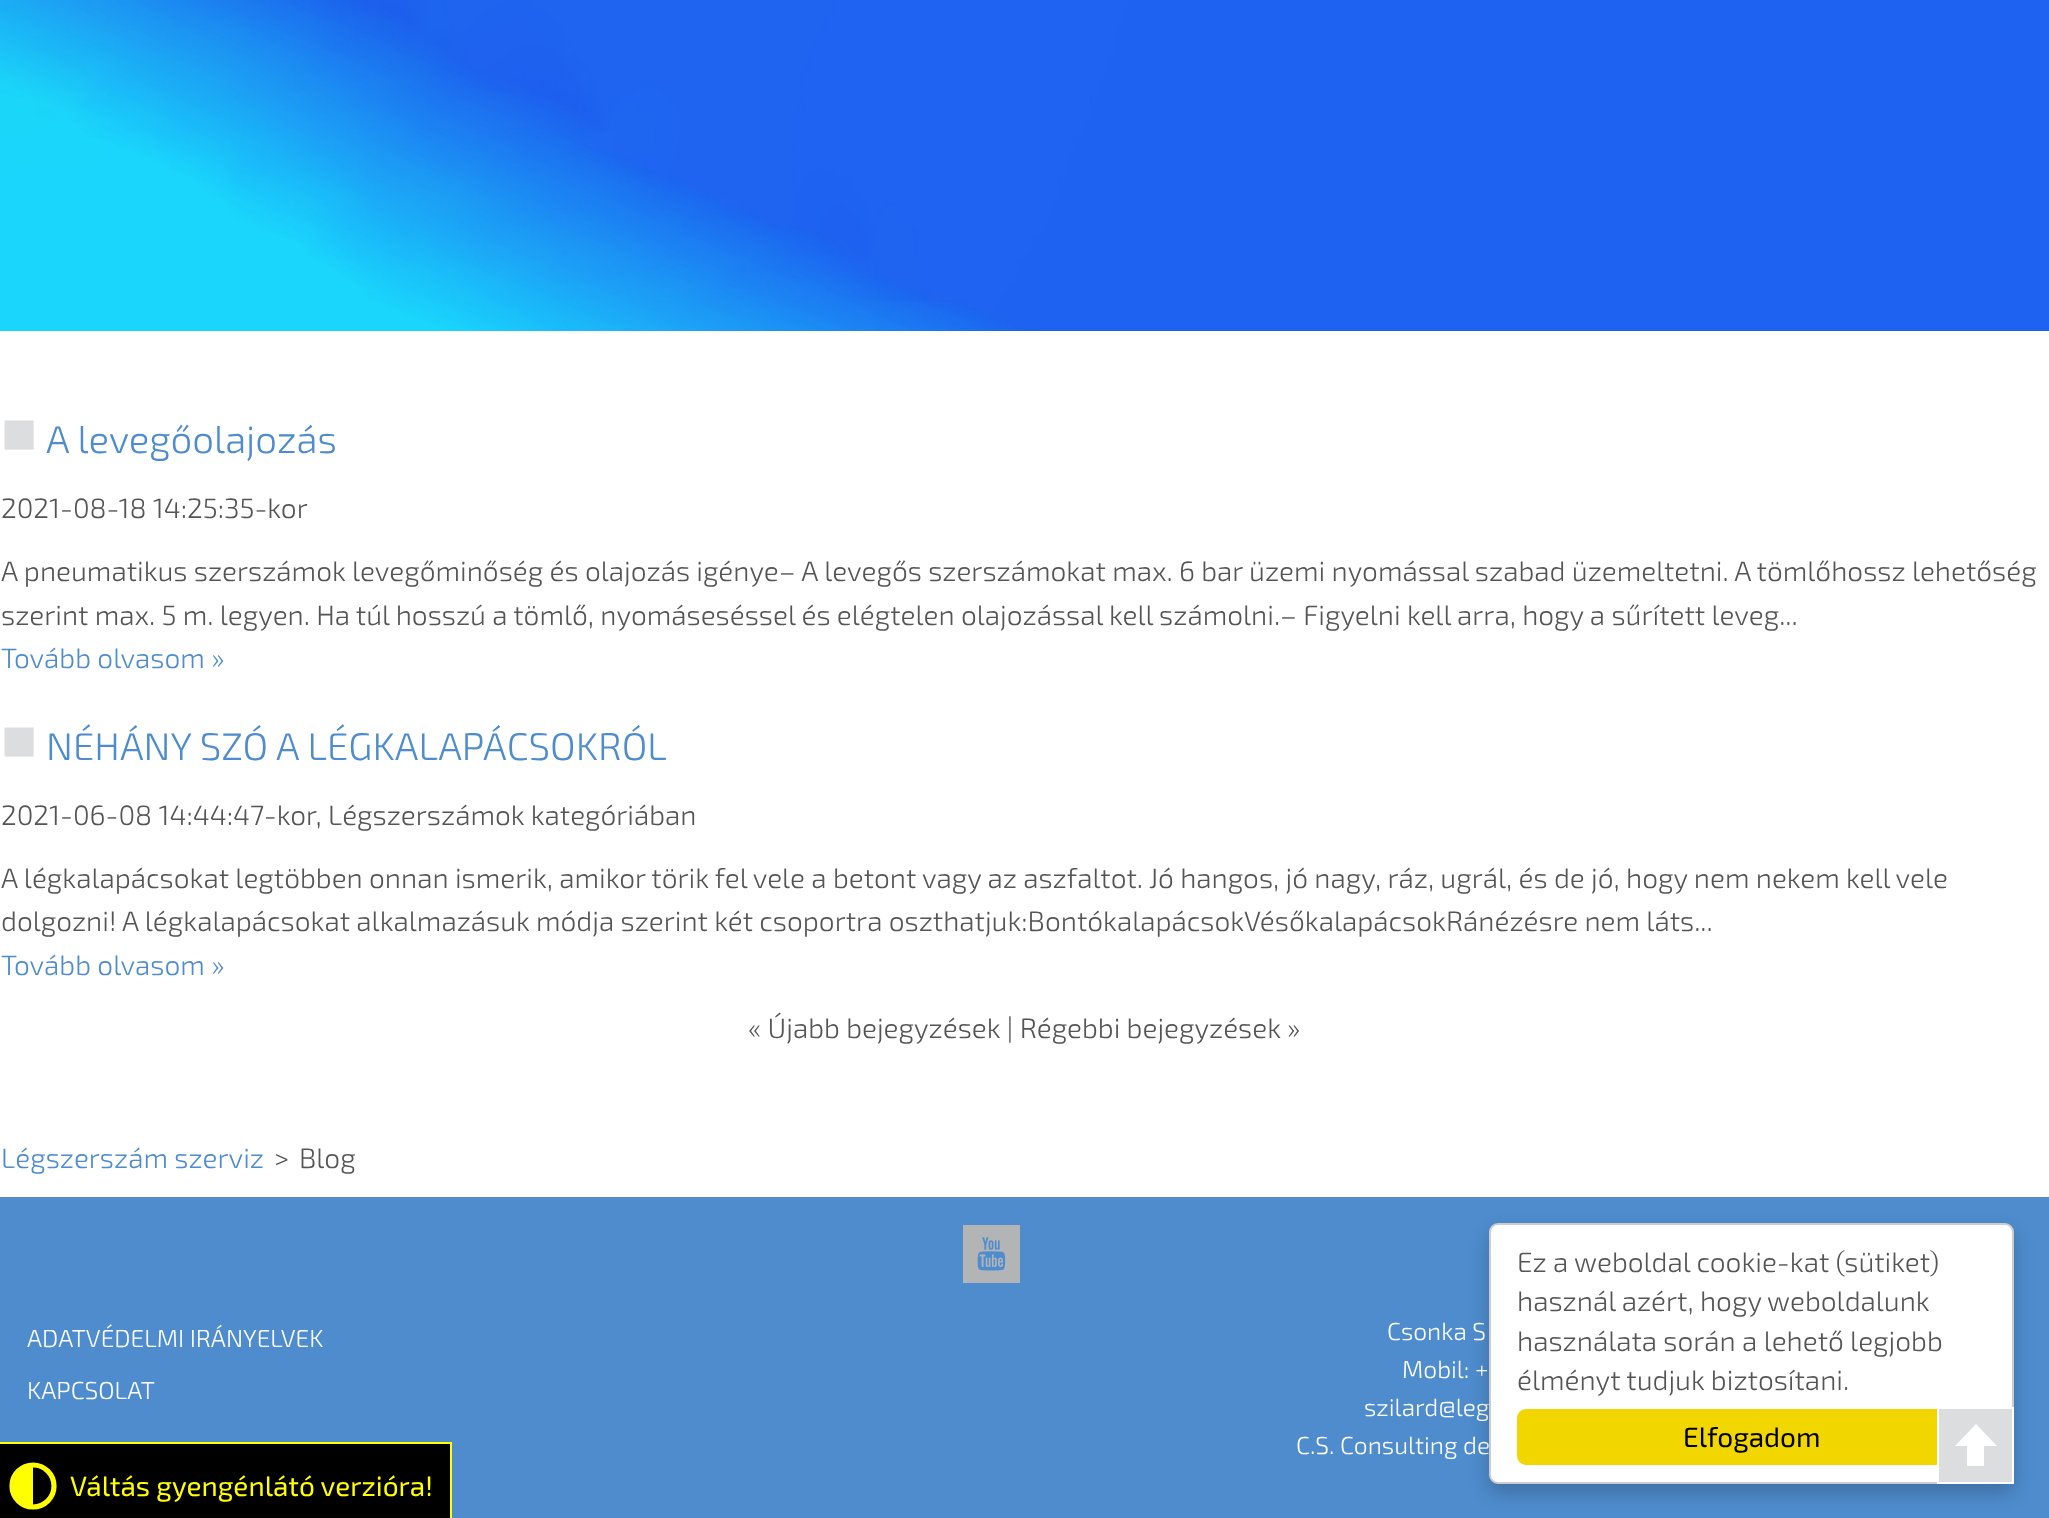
<svg xmlns="http://www.w3.org/2000/svg" width="2049" height="1518">
	<defs>
		<clipPath id="clip1"><rect x="9" y="1461" width="24" height="49" /></clipPath>
	</defs>
	<rect width="100%" height="100%" fill="#FFFFFF" />
	<image x="0" y="0" width="2049" height="331" href="assets/img1.png" />
	<text x="1" y="453" font-family="Liberation Sans" font-size="60" fill="#DBDDDF">■</text>
	<text x="46" y="453" font-family="'Exo 2'" font-size="38.5" font-weight="300" fill="#4E8CCD">A levegőolajozás</text>
	<g font-family="'Exo 2'" font-size="28" font-weight="300" fill="#555555">
		<text x="1" y="518">2021-08-18 14:25:35-kor</text>
		<text x="1" y="581">A pneumatikus szerszámok levegőminőség és olajozás igénye– A levegős szerszámokat max. 6 bar üzemi nyomással szabad üzemeltetni. A tömlőhossz lehetőség</text>
		<text x="1" y="625">szerint max. 5 m. legyen. Ha túl hosszú a tömlő, nyomáseséssel és elégtelen olajozással kell számolni.– Figyelni kell arra, hogy a sűrített leveg...</text>
	</g>
	<text x="1" y="668" font-family="'Exo 2'" font-size="28" font-weight="300" fill="#4E8CCD">Tovább olvasom »</text>
	<text x="1" y="760" font-family="Liberation Sans" font-size="60" fill="#DBDDDF">■</text>
	<text x="46" y="760" font-family="'Exo 2'" font-size="38.5" font-weight="300" fill="#4E8CCD">NÉHÁNY SZÓ A LÉGKALAPÁCSOKRÓL</text>
	<g font-family="'Exo 2'" font-size="28" font-weight="300" fill="#555555">
		<text x="1" y="825">2021-06-08 14:44:47-kor, Légszerszámok kategóriában</text>
		<text x="1" y="888">A légkalapácsokat legtöbben onnan ismerik, amikor törik fel vele a betont vagy az aszfaltot. Jó hangos, jó nagy, ráz, ugrál, és de jó, hogy nem nekem kell vele</text>
		<text x="1" y="931">dolgozni! A légkalapácsokat alkalmazásuk módja szerint két csoportra oszthatjuk:BontókalapácsokVésőkalapácsokRánézésre nem láts...</text>
	</g>
	<text x="1" y="975" font-family="'Exo 2'" font-size="28" font-weight="300" fill="#4E8CCD">Tovább olvasom »</text>
	<text x="748" y="1038" font-family="'Exo 2'" font-size="28" font-weight="300" fill="#555555">« Újabb bejegyzések | Régebbi bejegyzések »</text>
	<text x="1" y="1168" font-family="'Exo 2'" font-size="28" font-weight="300" fill="#4E8CCD">Légszerszám szerviz</text>
	<g font-family="'Exo 2'" font-size="28" font-weight="300" fill="#555555">
		<text x="274" y="1168">&gt;</text>
		<text x="299" y="1168">Blog</text>
	</g>
	<rect x="0" y="1197" width="2049" height="321" fill="#4E8CCD" />
	<rect x="963" y="1225" width="57" height="58" fill="#B3B4B5" />
	<image x="977" y="1237" width="29" height="34" href="assets/img2.png" />
	<g font-family="'Exo 2'" font-size="24.5" font-weight="300" fill="#FFFFFF">
		<text x="27" y="1347">ADATVÉDELMI IRÁNYELVEK</text>
		<text x="27" y="1399">KAPCSOLAT</text>
		<text x="1387" y="1340">Csonka S</text>
		<text x="1402" y="1378">Mobil: +</text>
		<text x="1364" y="1416">szilard@leg</text>
		<text x="1296" y="1454">C.S. Consulting de</text>
	</g>
	<rect x="1489" y="1232" width="525" height="261" rx="9" fill="#000000" fill-opacity="0.2" filter="blur(9px)" />
	<rect x="1490" y="1224" width="523" height="259" rx="8" fill="#FFFFFF" stroke="#CCCCCC" stroke-width="2" />
	<g font-family="'Exo 2'" font-size="28" font-weight="300" fill="#555555">
		<text x="1517" y="1272">Ez a weboldal cookie-kat (sütiket)</text>
		<text x="1517" y="1311">használ azért, hogy weboldalunk</text>
		<text x="1517" y="1351">használata során a lehető legjobb</text>
		<text x="1517" y="1390">élményt tudjuk biztosítani.</text>
	</g>
	<rect x="1517" y="1409" width="469" height="56" rx="9" fill="#F1D600" />
	<text x="1683" y="1447" font-family="'Exo 2'" font-size="28" fill="#000000">Elfogadom</text>
	<rect x="1938" y="1408" width="75" height="75" fill="#DBDDDF" stroke="#FFFFFF" stroke-width="2" />
	<path d="M1955 1446H1967V1466H1984V1446H1997L1976 1424" fill="#FFFFFF" />
	<rect x="0" y="1444" width="450" height="74" fill="#000000" />
	<rect x="0" y="1442" width="452" height="2" fill="#FFFF00" />
	<rect x="450" y="1442" width="2" height="76" fill="#FFFF00" />
	<text x="70" y="1496" font-family="'Exo 2'" font-size="28" fill="#FFFF00">Váltás gyengénlátó verzióra!</text>
	<circle cx="33" cy="1486" r="21" fill="none" stroke="#FFFF00" stroke-width="5.2" />
	<g clip-path="url(#clip1)">
		<circle cx="33" cy="1486" r="21" fill="#FFFF00" />
	</g>
</svg>
